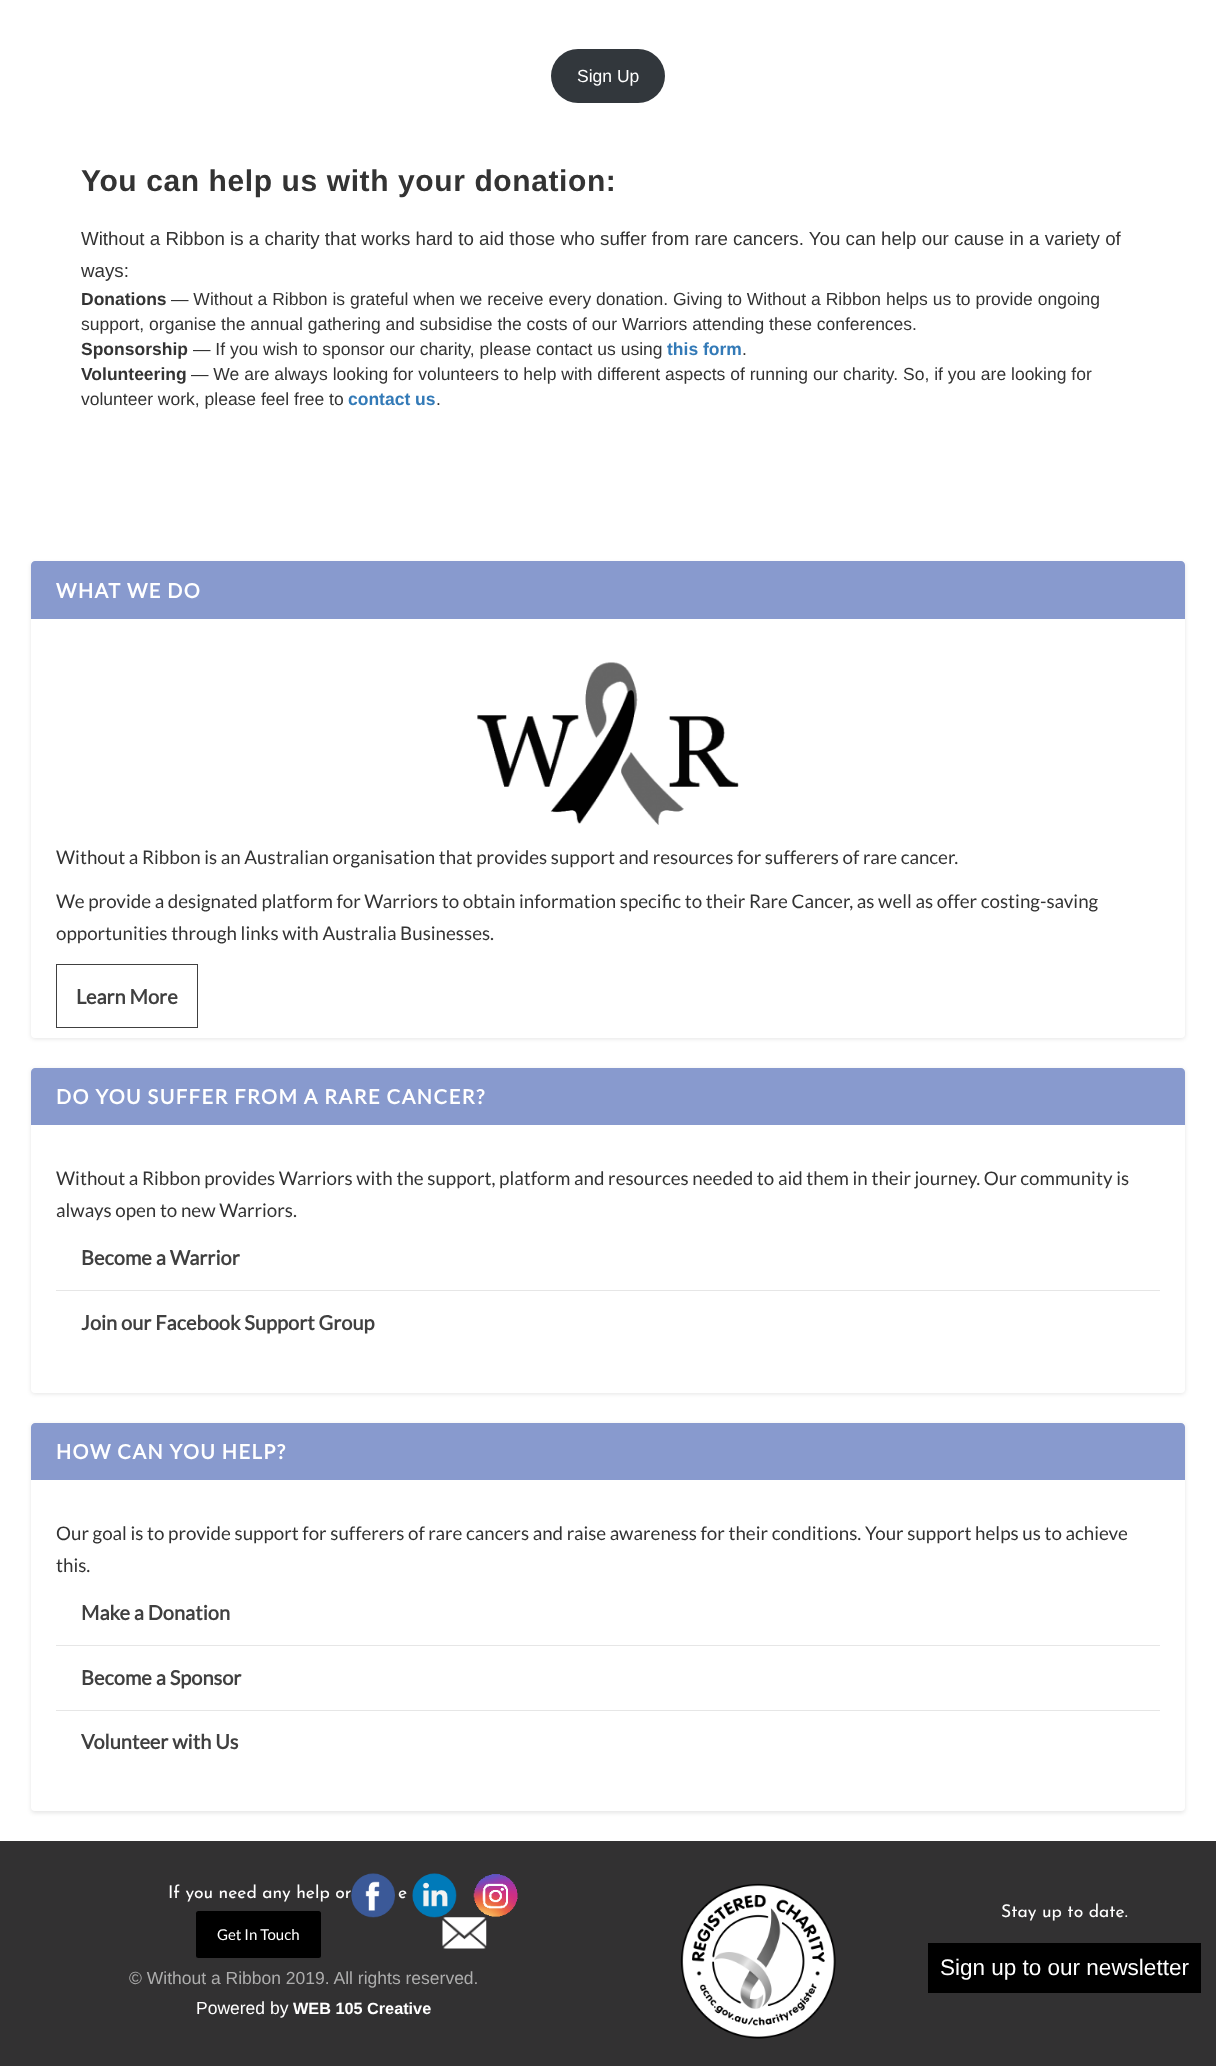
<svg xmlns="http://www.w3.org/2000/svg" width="1216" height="2066">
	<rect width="100%" height="100%" fill="#FFFFFF" />
	<rect x="551" y="49" width="114" height="54" rx="27" fill="#32373C" />
	<text x="577" y="82" font-family="Liberation Sans" font-size="17.5" fill="#FFFFFF">Sign Up</text>
	<text x="81" y="191" font-family="Liberation Sans" font-size="30" font-weight="700" letter-spacing="0.6" fill="#333333">You can help us with your donation:</text>
	<g font-family="Liberation Sans" font-size="18.75" fill="#333333">
		<text x="81" y="245">Without a Ribbon is a charity that works hard to aid those who suffer from rare cancers. You can help our cause in a variety of</text>
		<text x="81" y="277">ways:</text>
	</g>
	<text x="81" y="305" font-family="Liberation Sans" font-size="17.5" font-weight="700" fill="#333333">Donations</text>
	<g font-family="Liberation Sans" font-size="17.5" fill="#333333">
		<text x="171" y="305">— Without a Ribbon is grateful when we receive every donation. Giving to Without a Ribbon helps us to provide ongoing</text>
		<text x="81" y="330">support, organise the annual gathering and subsidise the costs of our Warriors attending these conferences.</text>
	</g>
	<text x="81" y="355" font-family="Liberation Sans" font-size="17.5" font-weight="700" fill="#333333">Sponsorship</text>
	<text x="193" y="355" font-family="Liberation Sans" font-size="17.5" fill="#333333">— If you wish to sponsor our charity, please contact us using</text>
	<text x="667" y="355" font-family="Liberation Sans" font-size="17.5" font-weight="700" fill="#337AB7">this form</text>
	<text x="742" y="355" font-family="Liberation Sans" font-size="17.5" fill="#333333">.</text>
	<text x="81" y="380" font-family="Liberation Sans" font-size="17.5" font-weight="700" fill="#333333">Volunteering</text>
	<g font-family="Liberation Sans" font-size="17.5" fill="#333333">
		<text x="191" y="380">— We are always looking for volunteers to help with different aspects of running our charity. So, if you are looking for</text>
		<text x="81" y="405">volunteer work, please feel free to</text>
	</g>
	<text x="348" y="405" font-family="Liberation Sans" font-size="17.5" font-weight="700" fill="#337AB7">contact us</text>
	<text x="436" y="405" font-family="Liberation Sans" font-size="17.5" fill="#333333">.</text>
	<rect x="31" y="563" width="1154" height="476" rx="4" fill="#000000" fill-opacity="0.1" filter="blur(2px)" />
	<rect x="31" y="561" width="1154" height="477" rx="4" fill="#FFFFFF" />
	<path d="M35 561H1181C1183 561 1185 563 1185 565V619H31V565C31 563 33 561 35 561Z" fill="#889ACE" />
	<text x="56" y="598" font-family="Lato" font-size="20" font-weight="700" letter-spacing="1.5" fill="#FFFFFF">WHAT WE DO</text>
	<image x="477" y="662" width="262" height="163" href="assets/img1.png" />
	<g font-family="Lato" font-size="18.75" fill="#333333">
		<text x="56" y="864">Without a Ribbon is an Australian organisation that provides support and resources for sufferers of rare cancer.</text>
		<text x="56" y="908">We provide a designated platform for Warriors to obtain information specific to their Rare Cancer, as well as offer costing-saving</text>
		<text x="56" y="940">opportunities through links with Australia Businesses.</text>
	</g>
	<rect x="56.5" y="964.5" width="141" height="63" fill="none" stroke="#404040" />
	<text x="76" y="1004" font-family="Lato" font-size="20" font-weight="700" fill="#404040">Learn More</text>
	<rect x="31" y="1069" width="1154" height="325" rx="4" fill="#000000" fill-opacity="0.1" filter="blur(2px)" />
	<rect x="31" y="1068" width="1154" height="325" rx="4" fill="#FFFFFF" />
	<path d="M35 1068H1181C1183 1068 1185 1070 1185 1072V1125H31V1072C31 1070 33 1068 35 1068Z" fill="#889ACE" />
	<text x="56" y="1104" font-family="Lato" font-size="20" font-weight="700" letter-spacing="1.5" fill="#FFFFFF">DO YOU SUFFER FROM A RARE CANCER?</text>
	<g font-family="Lato" font-size="18.75" fill="#333333">
		<text x="56" y="1185">Without a Ribbon provides Warriors with the support, platform and resources needed to aid them in their journey. Our community is</text>
		<text x="56" y="1217">always open to new Warriors.</text>
	</g>
	<rect x="56" y="1290" width="1104" height="1" fill="#E6E6E6" />
	<g font-family="Lato" font-size="20" font-weight="700" fill="#404040">
		<text x="81" y="1265">Become a Warrior</text>
		<text x="81" y="1330">Join our Facebook Support Group</text>
	</g>
	<rect x="31" y="1424" width="1154" height="389" rx="4" fill="#000000" fill-opacity="0.1" filter="blur(2px)" />
	<rect x="31" y="1423" width="1154" height="388" rx="4" fill="#FFFFFF" />
	<path d="M35 1423H1181C1183 1423 1185 1425 1185 1427V1480H31V1427C31 1425 33 1423 35 1423Z" fill="#889ACE" />
	<text x="56" y="1459" font-family="Lato" font-size="20" font-weight="700" letter-spacing="1.5" fill="#FFFFFF">HOW CAN YOU HELP?</text>
	<g font-family="Lato" font-size="18.75" fill="#333333">
		<text x="56" y="1540">Our goal is to provide support for sufferers of rare cancers and raise awareness for their conditions. Your support helps us to achieve</text>
		<text x="56" y="1572">this.</text>
	</g>
	<rect x="56" y="1645" width="1104" height="1" fill="#E6E6E6" />
	<text x="81" y="1620" font-family="Lato" font-size="20" font-weight="700" fill="#404040">Make a Donation</text>
	<rect x="56" y="1710" width="1104" height="1" fill="#E6E6E6" />
	<g font-family="Lato" font-size="20" font-weight="700" fill="#404040">
		<text x="81" y="1685">Become a Sponsor</text>
		<text x="81" y="1749">Volunteer with Us</text>
	</g>
	<rect x="0" y="1841" width="1216" height="225" fill="#323132" />
	<g font-family="Josefin Sans" font-size="17.5" fill="#FFFFFF">
		<text x="168" y="1898">If you need any help or</text>
		<text x="398" y="1898">e</text>
	</g>
	<rect x="196" y="1911" width="125" height="47" rx="2.5" fill="#000000" />
	<text x="217" y="1940" font-family="Lato" font-size="15" fill="#FFFFFF">Get In Touch</text>
	<image x="351" y="1873" width="44" height="45" href="assets/img2.png" />
	<image x="412" y="1873" width="45" height="45" href="assets/img3.png" />
	<image x="473" y="1874" width="45" height="43" href="assets/img4.png" />
	<image x="442" y="1917" width="45" height="32" href="assets/img5.png" />
	<text x="129" y="1984" font-family="Liberation Sans" font-size="17.5" fill="#ADADAD">© Without a Ribbon 2019. All rights reserved.</text>
	<text x="196" y="2014" font-family="Liberation Sans" font-size="17.5" fill="#FFFFFF">Powered by</text>
	<text x="293" y="2014" font-family="Liberation Sans" font-size="16.25" font-weight="700" fill="#FFFFFF">WEB 105 Creative</text>
	<image x="680" y="1883" width="156" height="156" href="assets/img6.png" />
	<text x="1001" y="1917" font-family="Josefin Sans" font-size="17.5" fill="#FFFFFF">Stay up to date.</text>
	<rect x="928" y="1943" width="273" height="50" fill="#000000" />
	<text x="940" y="1975" font-family="Liberation Sans" font-size="22.5" fill="#FFFFFF">Sign up to our newsletter</text>
</svg>
